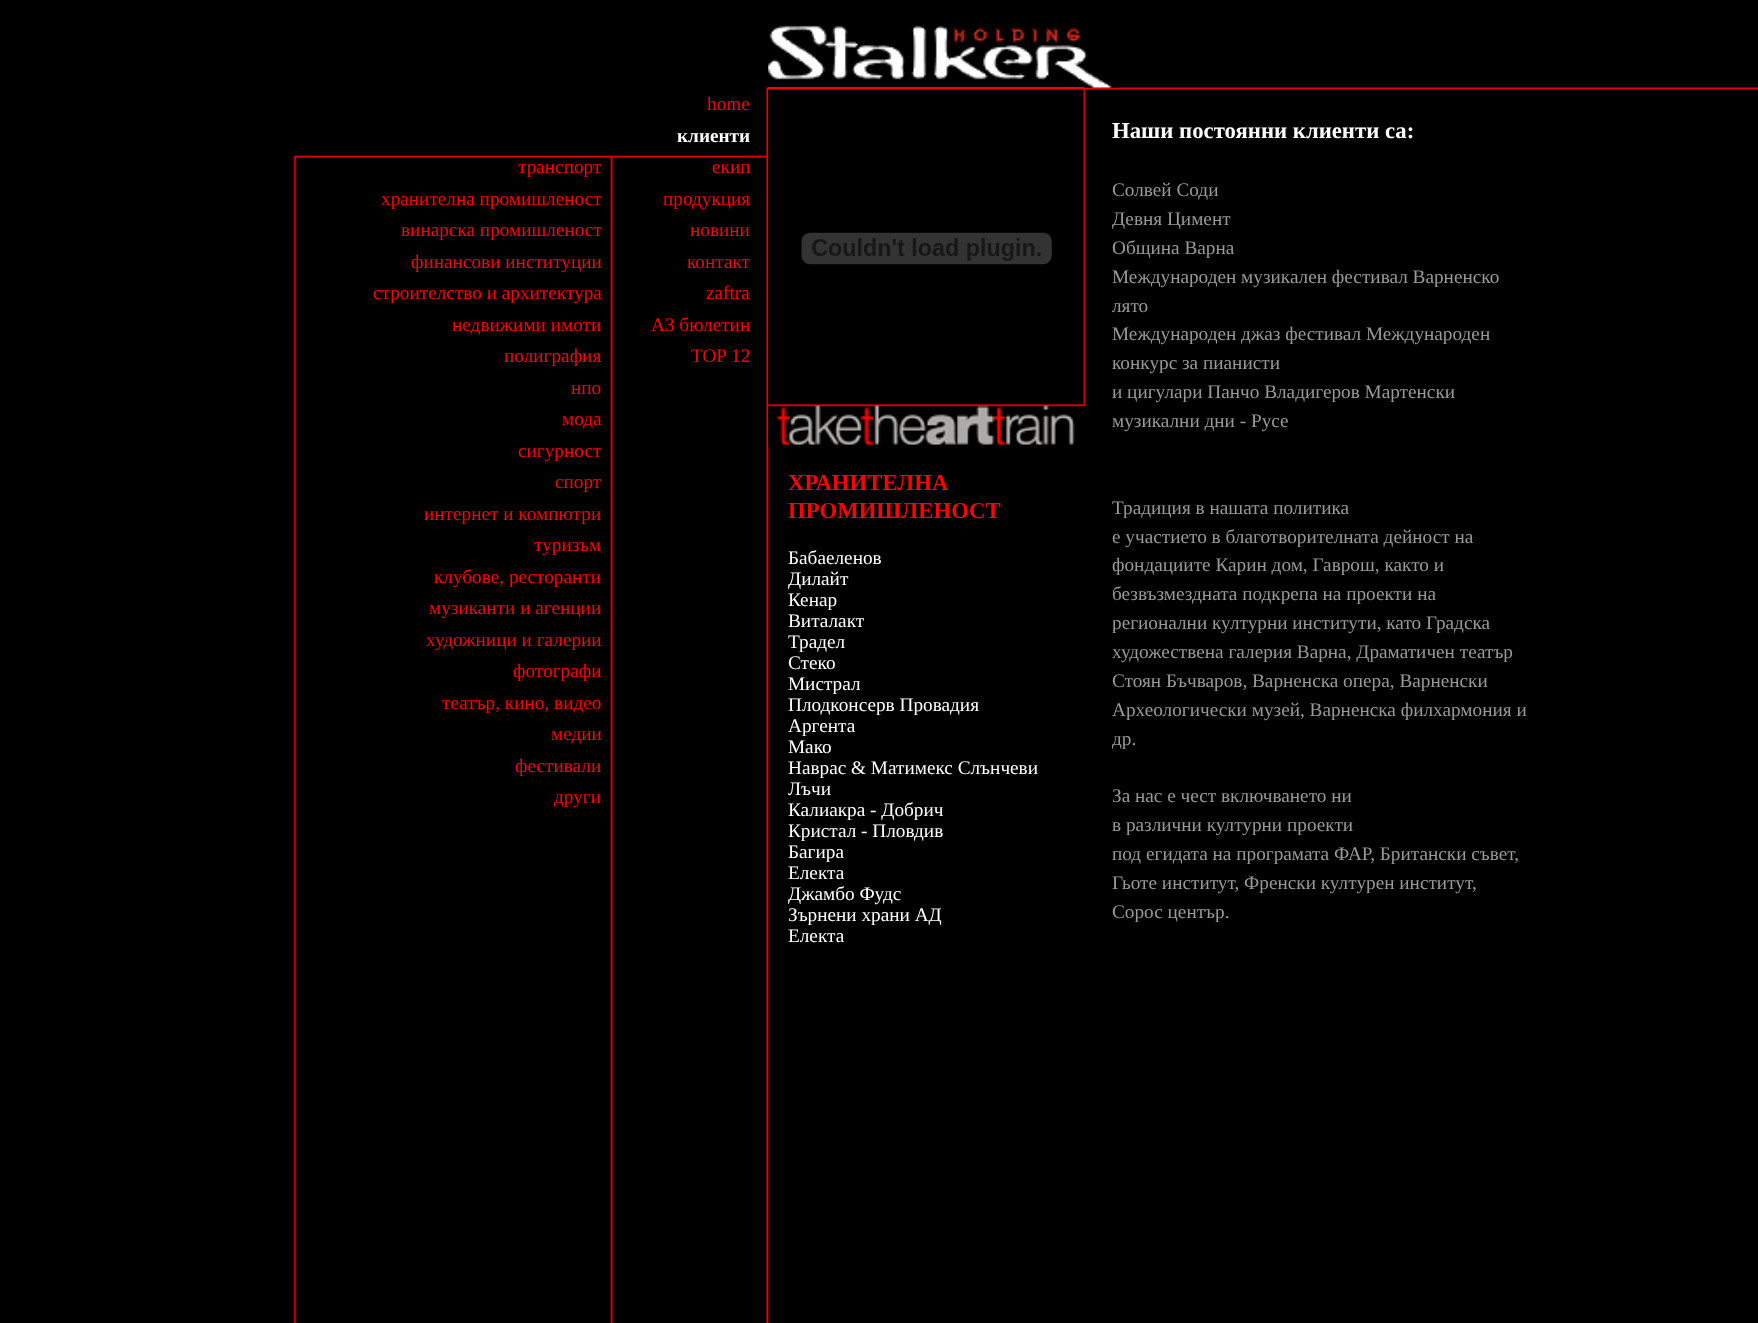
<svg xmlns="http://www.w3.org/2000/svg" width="1758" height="1323">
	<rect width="100%" height="100%" fill="#000000" />
	<image x="1196" y="87" width="562" height="3" href="assets/img1.png" />
	<image x="293" y="87" width="903" height="1236" href="assets/img2.png" />
	<g font-family="Liberation Serif" font-size="19.25" fill="#FF0000">
		<text x="518" y="173">транспорт</text>
		<text x="381" y="205">хранителна промишленост</text>
		<text x="401" y="236">винарска промишленост</text>
		<text x="411" y="268">финансови институции</text>
		<text x="373" y="299">строителство и архитектура</text>
		<text x="452" y="331">недвижими имоти</text>
		<text x="504" y="362">полиграфия</text>
		<text x="571" y="394">нпо</text>
		<text x="562" y="425">мода</text>
		<text x="518" y="457">сигурност</text>
		<text x="555" y="488">спорт</text>
		<text x="424" y="520">интернет и компютри</text>
		<text x="534" y="551">туризъм</text>
		<text x="434" y="583">клубове, ресторанти</text>
		<text x="429" y="614">музиканти и агенции</text>
		<text x="426" y="646">художници и галерии</text>
		<text x="513" y="677">фотографи</text>
		<text x="442" y="709">театър, кино, видео</text>
		<text x="551" y="740">медии</text>
		<text x="515" y="772">фестивали</text>
		<text x="554" y="803">други</text>
		<text x="707" y="110">homе</text>
	</g>
	<text x="677" y="142" font-family="Liberation Serif" font-size="19.25" font-weight="700" fill="#FFFFFF">клиенти</text>
	<g font-family="Liberation Serif" font-size="19.25" fill="#FF0000">
		<text x="712" y="173">екип</text>
		<text x="663" y="205">продукция</text>
		<text x="690" y="236">новини</text>
		<text x="687" y="268">контакт</text>
		<text x="706" y="299">zaftra</text>
		<text x="651" y="331">A3 бюлетин</text>
		<text x="691" y="362">TOP 12</text>
	</g>
	<image x="768" y="25" width="351" height="63" href="assets/img3.png" />
	<rect x="768" y="87" width="316" height="3" fill="#FF0000" />
	<image x="768" y="404" width="316" height="44" href="assets/img5.png" />
	<image x="768" y="89" width="316" height="316" href="assets/img4.png" />
	<g font-family="Liberation Serif" font-size="22.75" font-weight="700" fill="#FF0000">
		<text x="788" y="490">ХРАНИТЕЛНА</text>
		<text x="788" y="518">ПРОМИШЛЕНОСТ</text>
	</g>
	<g font-family="Liberation Serif" font-size="19.25" fill="#FFFFFF">
		<text x="788" y="564">Бабаеленов</text>
		<text x="788" y="585">Дилайт</text>
		<text x="788" y="606">Кенар</text>
		<text x="788" y="627">Виталакт</text>
		<text x="788" y="648">Традел</text>
		<text x="788" y="669">Стеко</text>
		<text x="788" y="690">Мистрал</text>
		<text x="788" y="711">Плодконсерв Провадия</text>
		<text x="788" y="732">Аргента</text>
		<text x="788" y="753">Мако</text>
		<text x="788" y="774">Наврас &amp; Матимекс Слънчеви</text>
		<text x="788" y="795">Лъчи</text>
		<text x="788" y="816">Калиакра - Добрич</text>
		<text x="788" y="837">Кристал - Пловдив</text>
		<text x="788" y="858">Багира</text>
		<text x="788" y="879">Електа</text>
		<text x="788" y="900">Джамбо Фудс</text>
		<text x="788" y="921">Зърнени храни АД</text>
		<text x="788" y="942">Електа</text>
	</g>
	<text x="1112" y="138" font-family="Liberation Serif" font-size="22.75" font-weight="700" fill="#FFFFFF">Наши постоянни клиенти са:</text>
	<g font-family="Liberation Serif" font-size="19.25" fill="#999999">
		<text x="1112" y="196">Солвей Соди</text>
		<text x="1112" y="225">Девня Цимент</text>
		<text x="1112" y="254">Община Варна</text>
		<text x="1112" y="283">Международен музикален фестивал Варненско</text>
		<text x="1112" y="312">лято</text>
		<text x="1112" y="340">Международен джаз фестивал Международен</text>
		<text x="1112" y="369">конкурс за пианисти</text>
		<text x="1112" y="398">и цигулари Панчо Владигеров Мартенски</text>
		<text x="1112" y="427">музикални дни - Русе</text>
		<text x="1112" y="514">Традиция в нашата политика</text>
		<text x="1112" y="543">е участието в благотворителната дейност на</text>
		<text x="1112" y="571">фондациите Карин дом, Гаврош, както и</text>
		<text x="1112" y="600">безвъзмездната подкрепа на проекти на</text>
		<text x="1112" y="629">регионални културни институти, като Градска</text>
		<text x="1112" y="658">художествена галерия Варна, Драматичен театър</text>
		<text x="1112" y="687">Стоян Бъчваров, Варненска опера, Варненски</text>
		<text x="1112" y="716">Археологически музей, Варненска филхармония и</text>
		<text x="1112" y="745">др.</text>
		<text x="1112" y="802">За нас е чест включването ни</text>
		<text x="1112" y="831">в различни културни проекти</text>
		<text x="1112" y="860">под егидата на програмата ФАР, Британски съвет,</text>
		<text x="1112" y="889">Гьоте институт, Френски културен институт,</text>
		<text x="1112" y="918">Сорос център.</text>
	</g>
</svg>
